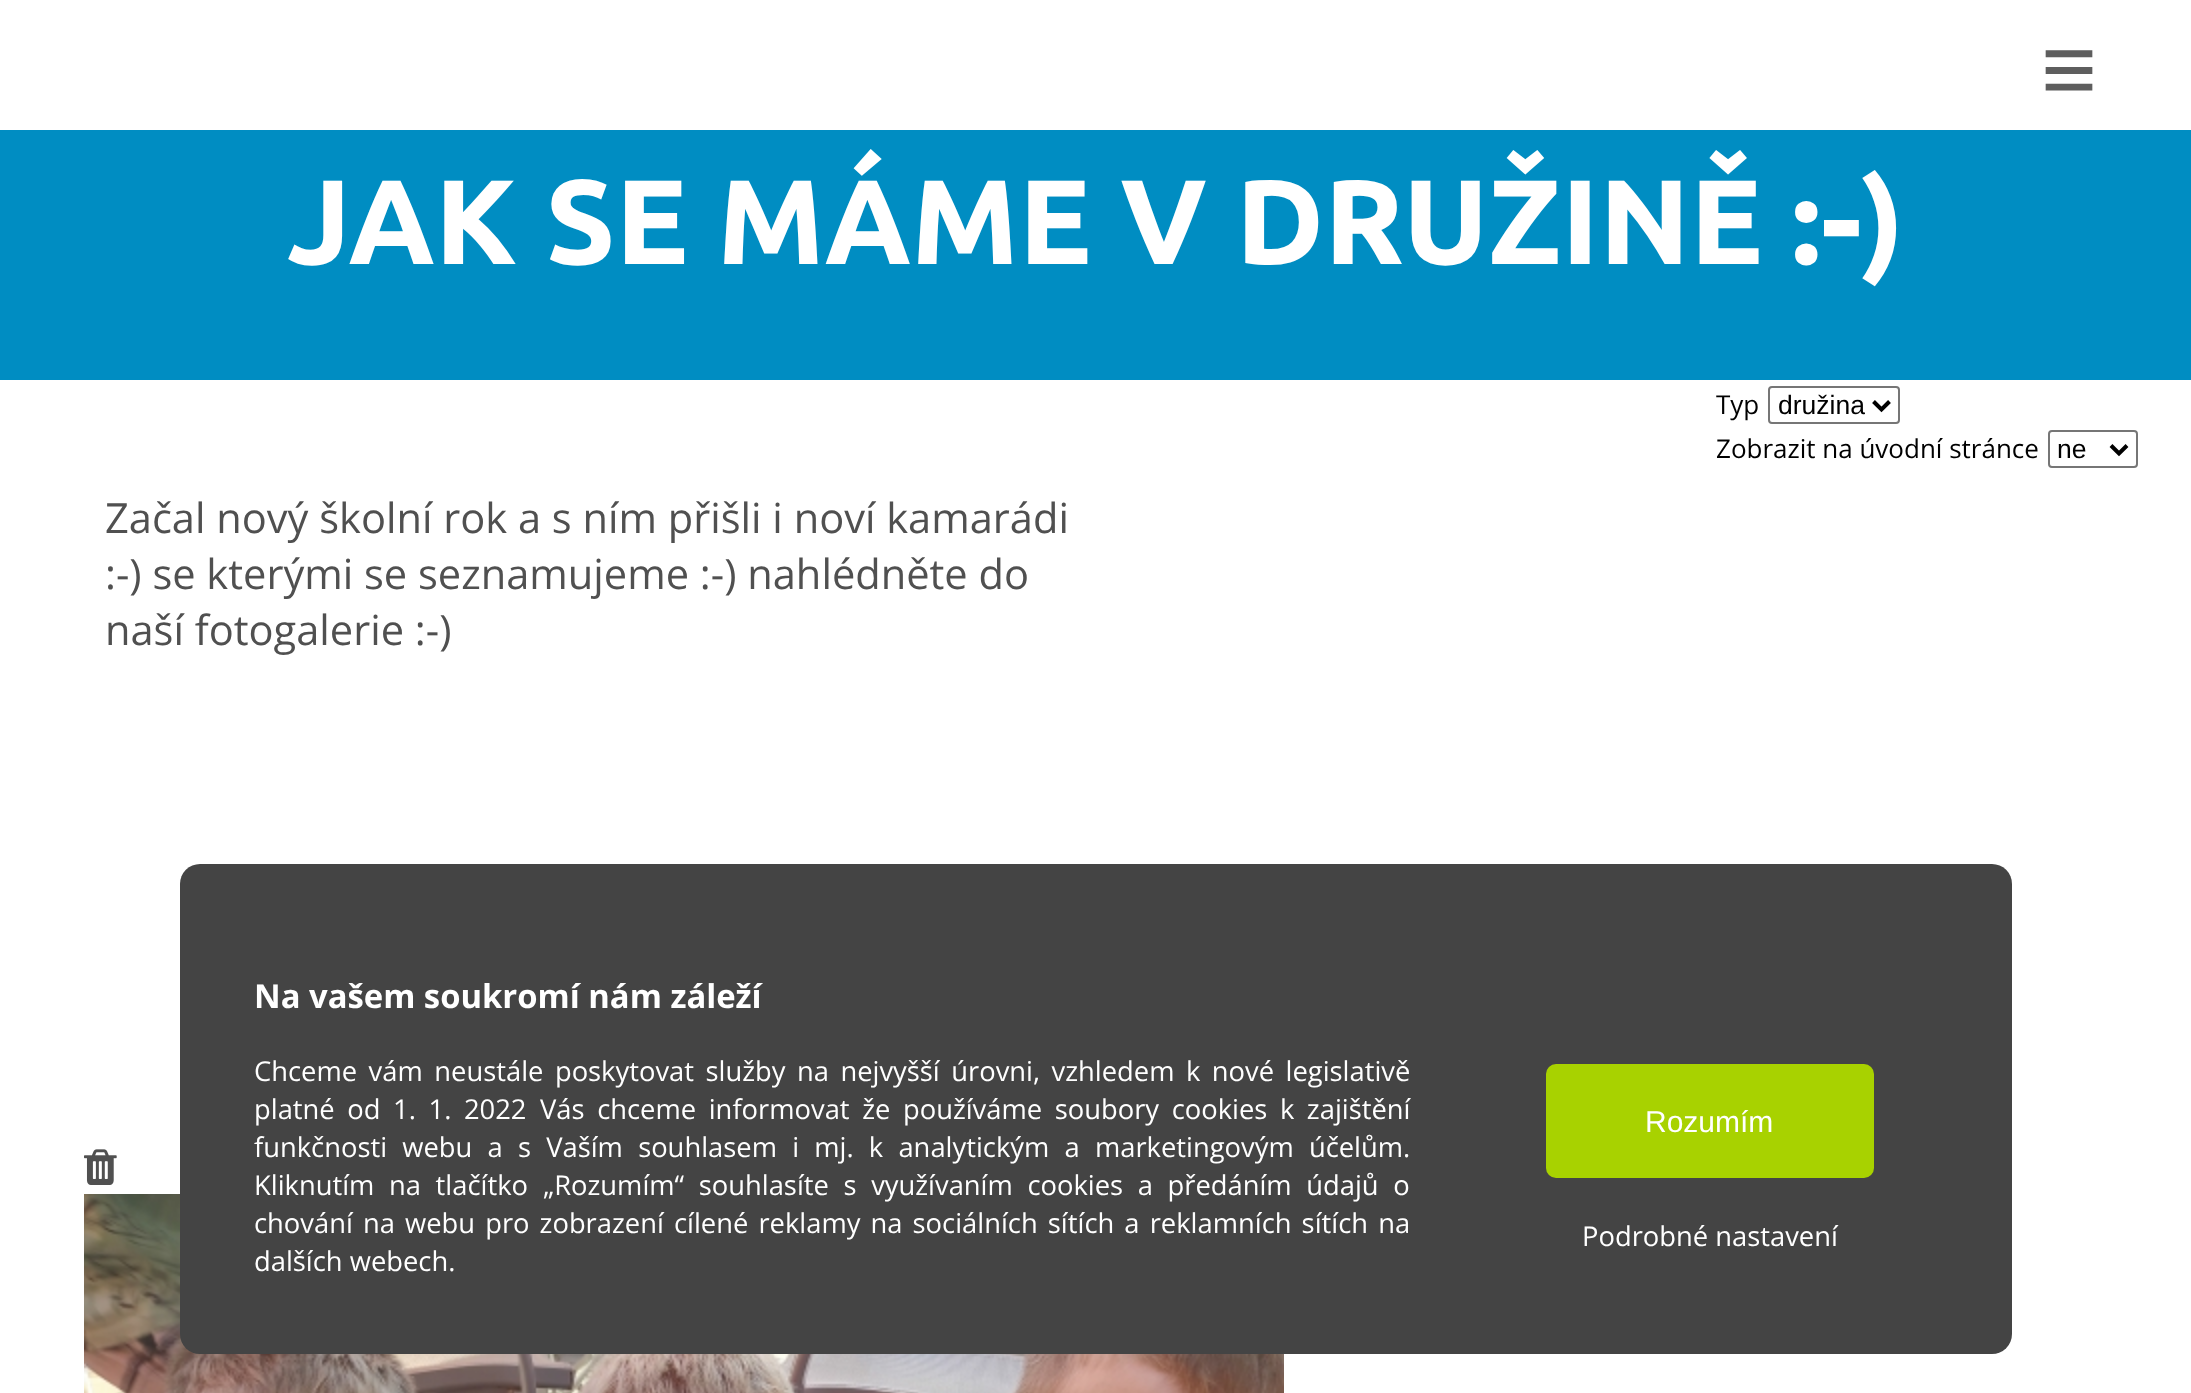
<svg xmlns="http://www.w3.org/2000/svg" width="2191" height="1393">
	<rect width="100%" height="100%" fill="#FFFFFF" />
	<text x="2041" y="102" font-family="Liberation Sans" font-size="96" fill="#5E5E5E">≡</text>
	<rect x="0" y="130" width="2191" height="250" fill="#008DC2" />
	<text x="287" y="264" font-family="Ubuntu" font-size="120" font-weight="700" fill="#FFFFFF">JAK SE MÁME V DRUŽINĚ :-)</text>
	<text x="1716" y="414" font-family="Open Sans" font-size="26" fill="#000000">Typ</text>
	<rect x="1769" y="387" width="130" height="36" rx="3" fill="none" stroke="#767676" stroke-width="2" />
	<path d="M1873.5 401.5L1881.5 409.5L1889.5 401.5" fill="none" stroke="#000000" stroke-width="4" />
	<text x="1778" y="414" font-family="Liberation Sans" font-size="26.5" fill="#000000">družina</text>
	<text x="1716" y="458" font-family="Open Sans" font-size="26" fill="#000000">Zobrazit na úvodní stránce</text>
	<rect x="2049" y="431" width="88" height="36" rx="3" fill="none" stroke="#767676" stroke-width="2" />
	<path d="M2111 445.5L2119 453.5L2127 445.5" fill="none" stroke="#000000" stroke-width="4" />
	<text x="2057" y="458" font-family="Liberation Sans" font-size="26.5" fill="#000000">ne</text>
	<g font-family="Open Sans" font-size="41.6" fill="#505050">
		<text x="105" y="533">Začal nový školní rok a s ním přišli i noví kamarádi</text>
		<text x="105" y="589">:-) se kterými se seznamujeme :-) nahlédněte do</text>
		<text x="105" y="645">naší fotogalerie :-)</text>
	</g>
	<image x="84" y="1149" width="33" height="36" href="assets/img1.png" />
	<image x="84" y="1194" width="1200" height="199" href="assets/img2.png" />
	<rect x="180" y="864" width="1832" height="490" rx="20" fill="#444444" />
	<text x="254" y="1008" font-family="Open Sans" font-size="32.8" font-weight="700" fill="#FFFFFF">Na vašem soukromí nám záleží</text>
	<g font-family="Open Sans" font-size="27.35" fill="#FFFFFF">
		<text x="254" y="1081" word-spacing="4.4">Chceme vám neustále poskytovat služby na nejvyšší úrovni, vzhledem k nové legislativě</text>
		<text x="254" y="1119" word-spacing="5.5">platné od 1. 1. 2022</text>
		<text x="540" y="1119" word-spacing="5.5">Vás chceme informovat že používáme soubory cookies k zajištění</text>
		<text x="254" y="1157" word-spacing="8.1">funkčnosti webu a s Vaším souhlasem i mj. k analytickým a marketingovým účelům.</text>
		<text x="254" y="1195" word-spacing="7.5">Kliknutím na tlačítko</text>
		<text x="543" y="1195" word-spacing="7.5">„Rozumím“ souhlasíte s využívaním cookies a předáním údajů o</text>
		<text x="254" y="1233" word-spacing="3">chování na webu pro zobrazení cílené reklamy na sociálních sítích a reklamních sítích na</text>
		<text x="254" y="1271">dalších webech.</text>
	</g>
	<rect x="1546" y="1064" width="328" height="114" rx="10" fill="#A8D200" />
	<text x="1645" y="1132" font-family="Liberation Sans" font-size="30" fill="#FFFFFF">Rozumím</text>
	<text x="1582" y="1246" font-family="Open Sans" font-size="27.35" fill="#FFFFFF">Podrobné nastavení</text>
</svg>
